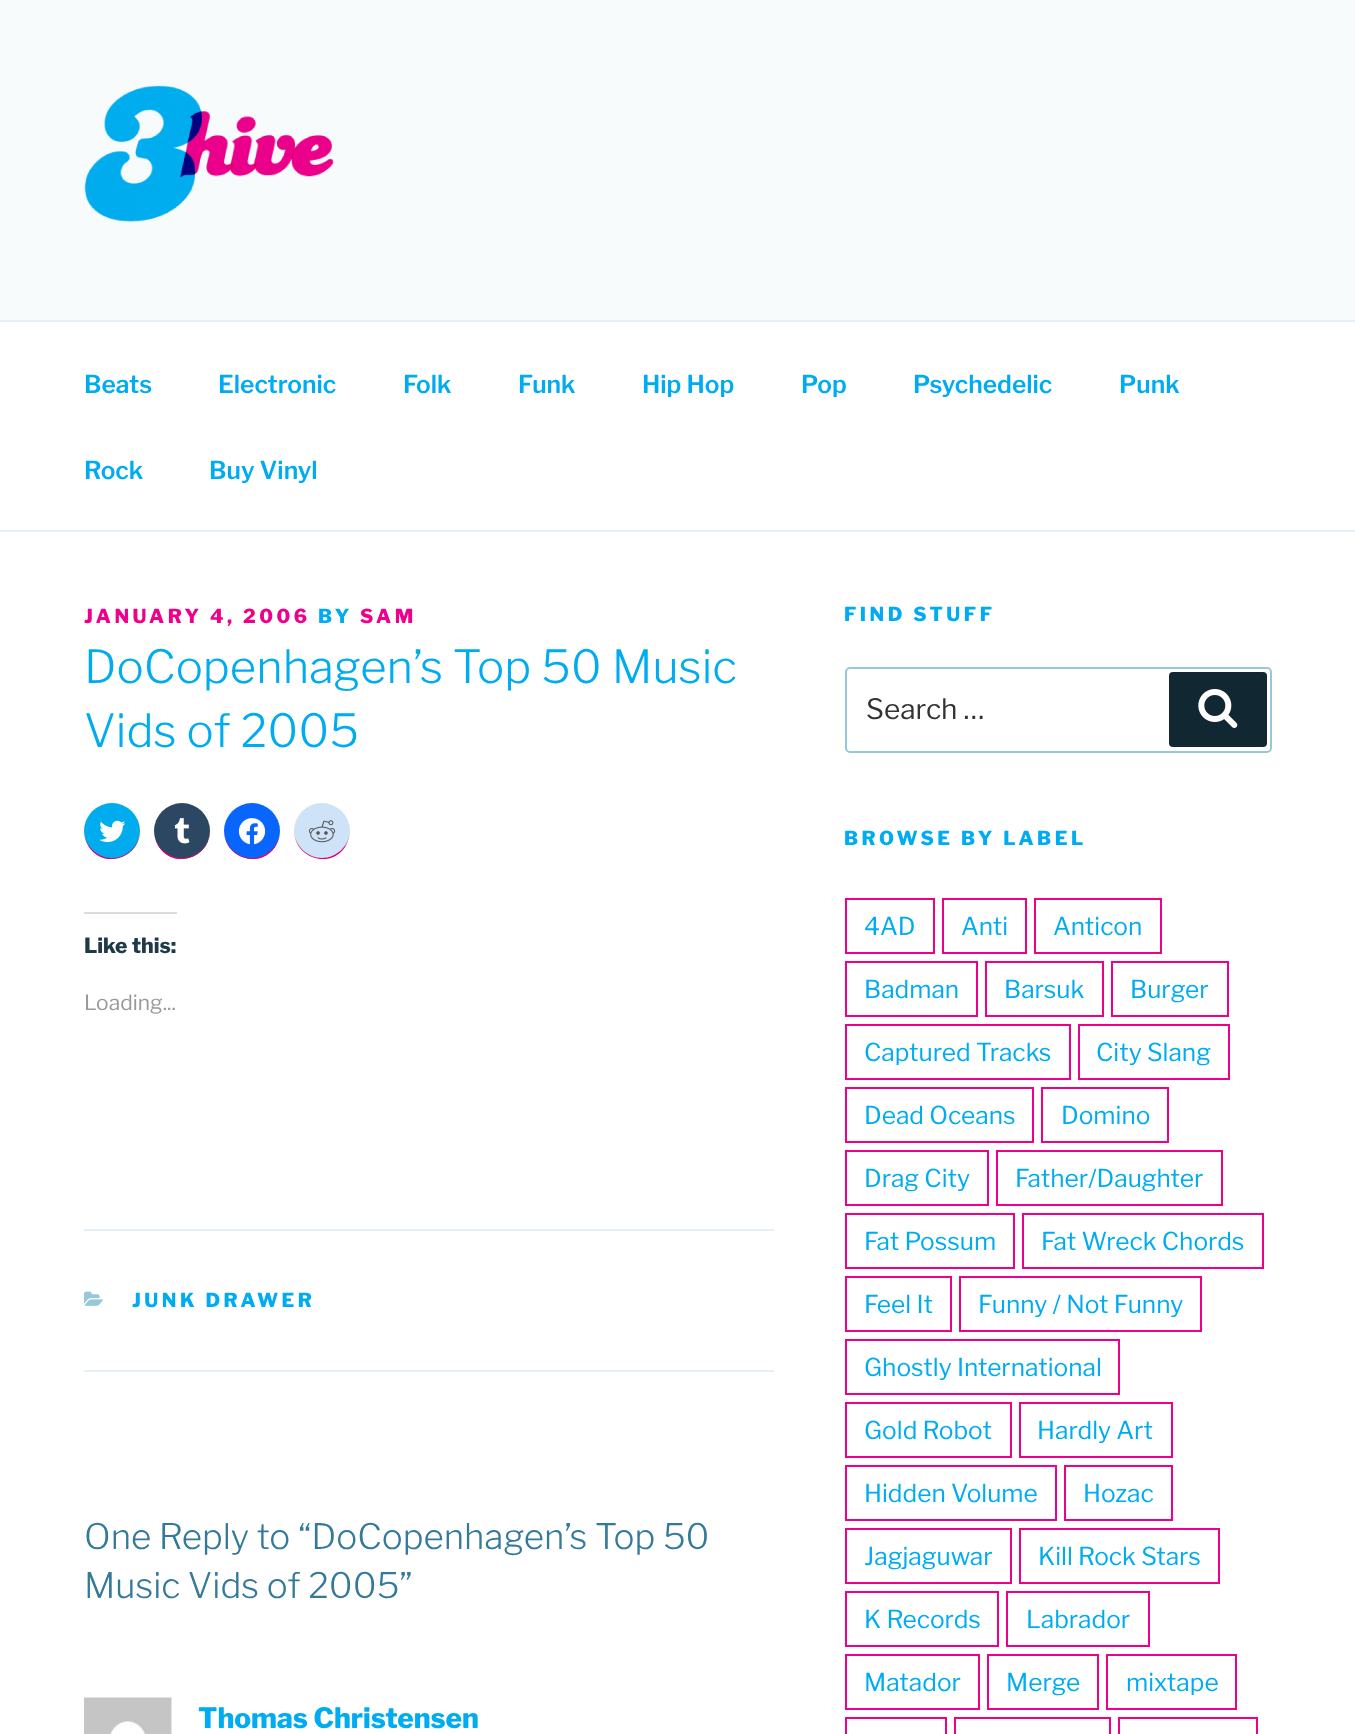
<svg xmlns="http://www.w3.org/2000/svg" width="1355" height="1734">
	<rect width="100%" height="100%" fill="#FFFFFF" />
	<rect x="0" y="0" width="1355" height="320" fill="#F7FBFC" />
	<image x="84" y="85" width="250" height="137" href="assets/img1.png" />
	<rect x="0" y="320" width="1355" height="2" fill="#E4F0F6" />
	<rect x="0" y="530" width="1355" height="2" fill="#E4F0F6" />
	<g font-family="Libre Franklin" font-size="24.5" font-weight="600" fill="#00ACF1">
		<text x="84" y="393">Beats</text>
		<text x="218" y="393">Electronic</text>
		<text x="403" y="393">Folk</text>
		<text x="518" y="393">Funk</text>
		<text x="642" y="393">Hip Hop</text>
		<text x="801" y="393">Pop</text>
		<text x="913" y="393">Psychedelic</text>
		<text x="1119" y="393">Punk</text>
		<text x="84" y="479">Rock</text>
		<text x="209" y="479">Buy Vinyl</text>
	</g>
	<text x="84" y="623" font-family="Libre Franklin" font-size="19.25" font-weight="800" letter-spacing="3.5" fill="#EE008B">JANUARY 4, 2006</text>
	<text x="318" y="623" font-family="Libre Franklin" font-size="19.25" font-weight="800" letter-spacing="3.5" fill="#00ACF1">BY</text>
	<text x="360" y="623" font-family="Libre Franklin" font-size="19.25" font-weight="800" letter-spacing="3.5" fill="#EE008B">SAM</text>
	<g font-family="Libre Franklin" font-size="45.5" font-weight="300" fill="#00ACF1">
		<text x="84" y="683">DoCopenhagen’s Top 50 Music</text>
		<text x="84" y="747">Vids of 2005</text>
	</g>
	<circle cx="112" cy="831" r="28" fill="#00ACEE" />
	<path d="M84 830C84 836 86 842 89 847C104 870 140 858 140 830C140 845 127 858 112 858C97 858 84 845 84 830Z" fill="#D8037C" />
	<image x="99" y="820" width="27" height="23" href="assets/img2.png" />
	<circle cx="182" cy="831" r="28" fill="#2C4762" />
	<path d="M154 830C154 836 156 842 159 847C174 870 210 858 210 830C210 845 197 858 182 858C167 858 154 845 154 830Z" fill="#D8037C" />
	<image x="174" y="818" width="16" height="26" href="assets/img3.png" />
	<circle cx="252" cy="831" r="28" fill="#0866FF" />
	<path d="M224 830C224 858 260 870 275 847C278 842 280 836 280 830C280 845 267 858 252 858C237 858 224 845 224 830Z" fill="#D8037C" />
	<image x="238" y="818" width="28" height="27" href="assets/img4.png" />
	<circle cx="322" cy="831" r="28" fill="#CEE3F8" />
	<path d="M294 830C294 858 330 870 345 847C348 842 350 836 350 830C350 845 337 858 322 858C307 858 294 845 294 830Z" fill="#D8037C" />
	<image x="308" y="820" width="28" height="23" href="assets/img5.png" />
	<rect x="84" y="912" width="93" height="2" fill="#DCDCDE" />
	<text x="84" y="953" font-family="Libre Franklin" font-size="21" font-weight="800" fill="#1F3A47">Like this:</text>
	<text x="84" y="1010" font-family="Libre Franklin" font-size="21" fill="#999999">Loading...</text>
	<rect x="84" y="1229" width="690" height="2" fill="#E4F0F6" />
	<rect x="84" y="1370" width="690" height="2" fill="#E4F0F6" />
	<image x="84" y="1291" width="19" height="15" href="assets/img6.png" />
	<text x="132" y="1307" font-family="Libre Franklin" font-size="19.25" font-weight="800" letter-spacing="3.5" fill="#00ACF1">JUNK DRAWER</text>
	<g font-family="Libre Franklin" font-size="35" font-weight="300" fill="#337999">
		<text x="84" y="1549">One Reply to “DoCopenhagen’s Top 50</text>
		<text x="84" y="1598">Music Vids of 2005”</text>
	</g>
	<image x="84" y="1697" width="88" height="37" href="assets/img7.png" />
	<text x="198" y="1728" font-family="Libre Franklin" font-size="28" font-weight="800" fill="#00ACF1">Thomas Christensen</text>
	<text x="844" y="621" font-family="Libre Franklin" font-size="19.25" font-weight="800" letter-spacing="3.5" fill="#00ACF1">FIND STUFF</text>
	<rect x="846" y="668" width="425" height="84" rx="4" fill="none" stroke="#98C7DD" stroke-width="2" />
	<text x="866" y="719" font-family="Libre Franklin" font-size="28" fill="#333333">Search …</text>
	<rect x="1169" y="672" width="98" height="75" rx="4" fill="#112732" />
	<image x="1198" y="689" width="40" height="39" href="assets/img8.png" />
	<text x="844" y="845" font-family="Libre Franklin" font-size="19.25" font-weight="800" letter-spacing="3.5" fill="#00ACF1">BROWSE BY LABEL</text>
	<rect x="846" y="899" width="88" height="54" fill="none" stroke="#EE0088" stroke-width="2" />
	<text x="864" y="935" font-family="Libre Franklin" font-size="24.5" fill="#00ACF1">4AD</text>
	<rect x="943" y="899" width="83" height="54" fill="none" stroke="#EE0088" stroke-width="2" />
	<text x="961" y="935" font-family="Libre Franklin" font-size="24.5" fill="#00ACF1">Anti</text>
	<rect x="1035" y="899" width="126" height="54" fill="none" stroke="#EE0088" stroke-width="2" />
	<text x="1053" y="935" font-family="Libre Franklin" font-size="24.5" fill="#00ACF1">Anticon</text>
	<rect x="846" y="962" width="131" height="54" fill="none" stroke="#EE0088" stroke-width="2" />
	<text x="864" y="998" font-family="Libre Franklin" font-size="24.5" fill="#00ACF1">Badman</text>
	<rect x="986" y="962" width="117" height="54" fill="none" stroke="#EE0088" stroke-width="2" />
	<text x="1004" y="998" font-family="Libre Franklin" font-size="24.5" fill="#00ACF1">Barsuk</text>
	<rect x="1112" y="962" width="116" height="54" fill="none" stroke="#EE0088" stroke-width="2" />
	<text x="1130" y="998" font-family="Libre Franklin" font-size="24.5" fill="#00ACF1">Burger</text>
	<rect x="846" y="1025" width="224" height="54" fill="none" stroke="#EE0088" stroke-width="2" />
	<text x="864" y="1061" font-family="Libre Franklin" font-size="24.5" fill="#00ACF1">Captured Tracks</text>
	<rect x="1079" y="1025" width="150" height="54" fill="none" stroke="#EE0088" stroke-width="2" />
	<text x="1096" y="1061" font-family="Libre Franklin" font-size="24.5" fill="#00ACF1">City Slang</text>
	<rect x="846" y="1088" width="187" height="54" fill="none" stroke="#EE0088" stroke-width="2" />
	<text x="864" y="1124" font-family="Libre Franklin" font-size="24.5" fill="#00ACF1">Dead Oceans</text>
	<rect x="1042" y="1088" width="126" height="54" fill="none" stroke="#EE0088" stroke-width="2" />
	<text x="1061" y="1124" font-family="Libre Franklin" font-size="24.5" fill="#00ACF1">Domino</text>
	<rect x="846" y="1151" width="142" height="54" fill="none" stroke="#EE0088" stroke-width="2" />
	<text x="864" y="1187" font-family="Libre Franklin" font-size="24.5" fill="#00ACF1">Drag City</text>
	<rect x="997" y="1151" width="225" height="54" fill="none" stroke="#EE0088" stroke-width="2" />
	<text x="1015" y="1187" font-family="Libre Franklin" font-size="24.5" fill="#00ACF1">Father/Daughter</text>
	<rect x="846" y="1214" width="168" height="54" fill="none" stroke="#EE0088" stroke-width="2" />
	<text x="864" y="1250" font-family="Libre Franklin" font-size="24.5" fill="#00ACF1">Fat Possum</text>
	<rect x="1023" y="1214" width="240" height="54" fill="none" stroke="#EE0088" stroke-width="2" />
	<text x="1041" y="1250" font-family="Libre Franklin" font-size="24.5" fill="#00ACF1">Fat Wreck Chords</text>
	<rect x="846" y="1277" width="105" height="54" fill="none" stroke="#EE0088" stroke-width="2" />
	<text x="864" y="1313" font-family="Libre Franklin" font-size="24.5" fill="#00ACF1">Feel It</text>
	<rect x="960" y="1277" width="241" height="54" fill="none" stroke="#EE0088" stroke-width="2" />
	<text x="978" y="1313" font-family="Libre Franklin" font-size="24.5" fill="#00ACF1">Funny / Not Funny</text>
	<rect x="846" y="1340" width="273" height="54" fill="none" stroke="#EE0088" stroke-width="2" />
	<text x="864" y="1376" font-family="Libre Franklin" font-size="24.5" fill="#00ACF1">Ghostly International</text>
	<rect x="846" y="1403" width="165" height="54" fill="none" stroke="#EE0088" stroke-width="2" />
	<text x="864" y="1439" font-family="Libre Franklin" font-size="24.5" fill="#00ACF1">Gold Robot</text>
	<rect x="1020" y="1403" width="152" height="54" fill="none" stroke="#EE0088" stroke-width="2" />
	<text x="1037" y="1439" font-family="Libre Franklin" font-size="24.5" fill="#00ACF1">Hardly Art</text>
	<rect x="846" y="1466" width="210" height="54" fill="none" stroke="#EE0088" stroke-width="2" />
	<text x="864" y="1502" font-family="Libre Franklin" font-size="24.5" fill="#00ACF1">Hidden Volume</text>
	<rect x="1065" y="1466" width="107" height="54" fill="none" stroke="#EE0088" stroke-width="2" />
	<text x="1083" y="1502" font-family="Libre Franklin" font-size="24.5" fill="#00ACF1">Hozac</text>
	<rect x="846" y="1529" width="165" height="54" fill="none" stroke="#EE0088" stroke-width="2" />
	<text x="864" y="1565" font-family="Libre Franklin" font-size="24.5" fill="#00ACF1">Jagjaguwar</text>
	<rect x="1020" y="1529" width="199" height="54" fill="none" stroke="#EE0088" stroke-width="2" />
	<text x="1038" y="1565" font-family="Libre Franklin" font-size="24.5" fill="#00ACF1">Kill Rock Stars</text>
	<rect x="846" y="1592" width="152" height="54" fill="none" stroke="#EE0088" stroke-width="2" />
	<text x="864" y="1628" font-family="Libre Franklin" font-size="24.5" fill="#00ACF1">K Records</text>
	<rect x="1007" y="1592" width="142" height="54" fill="none" stroke="#EE0088" stroke-width="2" />
	<text x="1026" y="1628" font-family="Libre Franklin" font-size="24.5" fill="#00ACF1">Labrador</text>
	<rect x="846" y="1655" width="133" height="54" fill="none" stroke="#EE0088" stroke-width="2" />
	<text x="864" y="1691" font-family="Libre Franklin" font-size="24.5" fill="#00ACF1">Matador</text>
	<rect x="988" y="1655" width="110" height="54" fill="none" stroke="#EE0088" stroke-width="2" />
	<text x="1006" y="1691" font-family="Libre Franklin" font-size="24.5" fill="#00ACF1">Merge</text>
	<rect x="1107" y="1655" width="129" height="54" fill="none" stroke="#EE0088" stroke-width="2" />
	<text x="1126" y="1691" font-family="Libre Franklin" font-size="24.5" fill="#00ACF1">mixtape</text>
	<rect x="846" y="1718" width="100" height="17" fill="none" stroke="#EE0088" stroke-width="2" />
	<rect x="955" y="1718" width="155" height="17" fill="none" stroke="#EE0088" stroke-width="2" />
	<rect x="1119" y="1718" width="138" height="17" fill="none" stroke="#EE0088" stroke-width="2" />
</svg>
